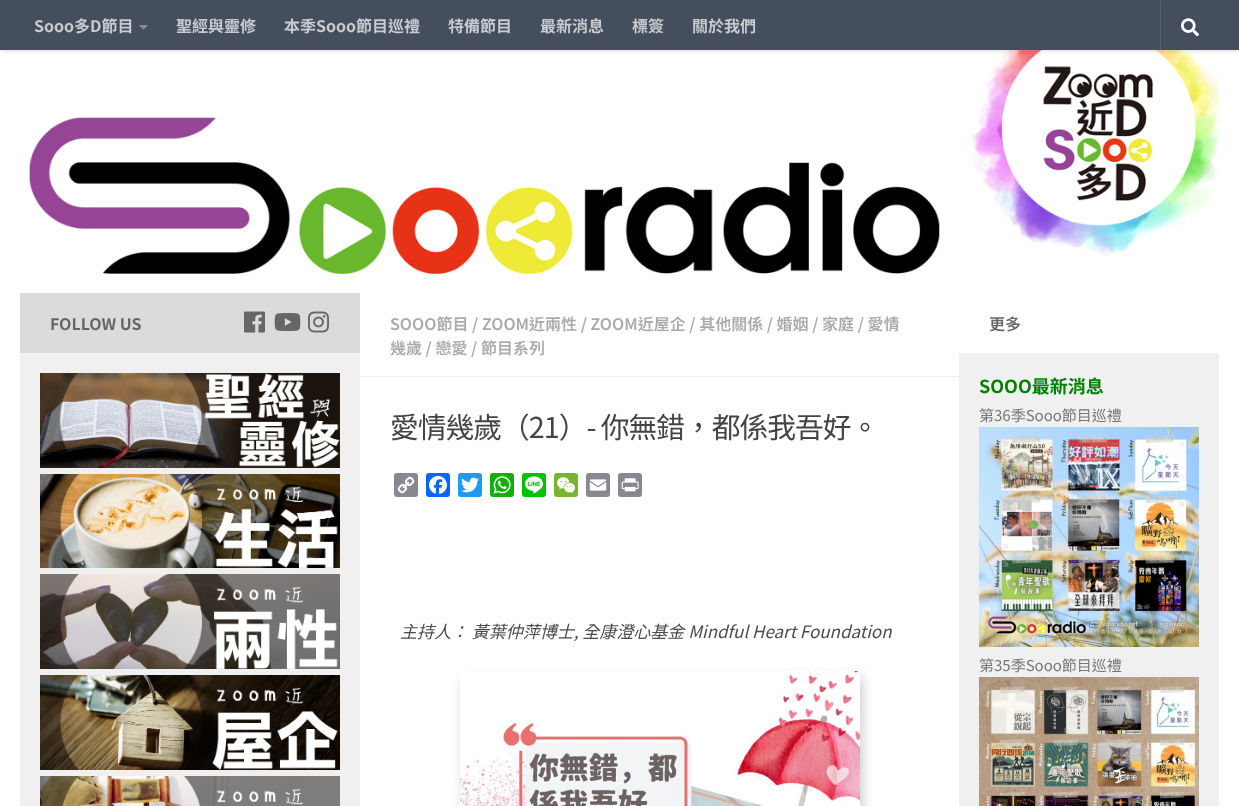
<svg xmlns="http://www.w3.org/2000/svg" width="1239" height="806">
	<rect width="100%" height="100%" fill="#FFFFFF" />
	<image x="29" y="50" width="1190" height="225" href="assets/img3.png" />
	<rect x="1008" y="50" width="179" height="1" fill="#FFFFFF" fill-opacity="0.15" />
	<rect x="0" y="0" width="1239" height="50" fill="#000000" fill-opacity="0.2" filter="blur(2.5px)" />
	<rect x="0" y="0" width="1239" height="50" fill="#454E5C" />
	<text x="34" y="32" font-family="Noto Sans TC" font-size="16" font-weight="700" fill="#C7CACE">Sooo多D節目</text>
	<image x="139" y="25" width="9" height="5" href="assets/img1.png" />
	<g font-family="Noto Sans TC" font-size="16" font-weight="700" fill="#C7CACE">
		<text x="176" y="32">聖經與靈修</text>
		<text x="284" y="32">本季Sooo節目巡禮</text>
		<text x="448" y="32">特備節目</text>
		<text x="540" y="32">最新消息</text>
		<text x="632" y="32">標簽</text>
		<text x="692" y="32">關於我們</text>
	</g>
	<rect x="1160" y="1" width="1" height="49" fill="#58606C" />
	<image x="1181" y="18" width="18" height="19" href="assets/img2.png" />
	<rect x="20" y="293" width="340" height="60" fill="#DBDBDB" />
	<text x="50" y="330" font-family="Noto Sans TC" font-size="16" font-weight="700" fill="#666666">FOLLOW US</text>
	<image x="244" y="311" width="21" height="22" href="assets/img4.png" />
	<image x="274" y="313" width="27" height="18" href="assets/img5.png" />
	<image x="308" y="311" width="21" height="22" href="assets/img6.png" />
	<rect x="20" y="353" width="340" height="453" fill="#F0F0F0" />
	<image x="40" y="373" width="300" height="95" href="assets/img7.png" />
	<image x="40" y="474" width="300" height="94" href="assets/img8.png" />
	<image x="40" y="574" width="300" height="95" href="assets/img9.png" />
	<image x="40" y="675" width="300" height="95" href="assets/img10.png" />
	<image x="40" y="776" width="300" height="30" href="assets/img11.png" />
	<rect x="360" y="376" width="599" height="1" fill="#EEEEEE" />
	<g font-family="Noto Sans TC" font-size="16" font-weight="600" fill="#AAAAAA">
		<text x="390" y="330">SOOO節目 / ZOOM近兩性 / ZOOM近屋企 / 其他關係 / 婚姻 / 家庭 / 愛情</text>
		<text x="390" y="354">幾歲 / 戀愛 / 節目系列</text>
	</g>
	<text x="390" y="438" font-family="Noto Sans TC" font-size="28.75" letter-spacing="-1" fill="#444444">愛情幾歲（21）- 你無錯，都係我吾好。</text>
	<rect x="394" y="473" width="24" height="24" rx="3" fill="#888990" />
	<image x="397" y="476" width="18" height="18" href="assets/img12.png" />
	<rect x="426" y="473" width="24" height="24" rx="3" fill="#0866FF" />
	<image x="429" y="476" width="18" height="18" href="assets/img13.png" />
	<rect x="458" y="473" width="24" height="24" rx="3" fill="#1D9BF0" />
	<image x="461" y="477" width="18" height="16" href="assets/img14.png" />
	<rect x="490" y="473" width="24" height="24" rx="3" fill="#12AF0A" />
	<image x="493" y="476" width="18" height="18" href="assets/img15.png" />
	<rect x="522" y="473" width="24" height="24" rx="3" fill="#00C300" />
	<image x="525" y="476" width="18" height="18" href="assets/img16.png" />
	<rect x="554" y="473" width="24" height="24" rx="3" fill="#7BB32E" />
	<image x="557" y="477" width="18" height="16" href="assets/img17.png" />
	<rect x="586" y="473" width="24" height="24" rx="3" fill="#888990" />
	<image x="589" y="479" width="18" height="12" href="assets/img18.png" />
	<rect x="618" y="473" width="24" height="24" rx="3" fill="#888990" />
	<image x="621" y="478" width="18" height="14" href="assets/img19.png" />
	<text x="400" y="638" font-family="Noto Sans TC" font-size="17" font-style="italic" fill="#4D4B4B">主持人： 黃葉仲萍博士, 全康澄心基金 Mindful Heart Foundation</text>
	<rect x="463" y="677" width="400" height="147" fill="#000000" fill-opacity="0.19" filter="blur(6px)" />
	<image x="460" y="671" width="400" height="135" href="assets/img20.png" />
	<text x="989" y="330" font-family="Noto Sans TC" font-size="16" font-weight="600" fill="#666666">更多</text>
	<rect x="959" y="353" width="260" height="453" fill="#F0F0F0" />
	<text x="979" y="393" font-family="Noto Sans TC" font-size="18" font-weight="700" fill="#008000">SOOO最新消息</text>
	<text x="979" y="421" font-family="Noto Sans TC" font-size="15" fill="#777777">第36季Sooo節目巡禮</text>
	<image x="979" y="427" width="220" height="220" href="assets/img21.png" />
	<text x="979" y="671" font-family="Noto Sans TC" font-size="15" fill="#777777">第35季Sooo節目巡禮</text>
	<image x="979" y="677" width="220" height="129" href="assets/img22.png" />
</svg>
